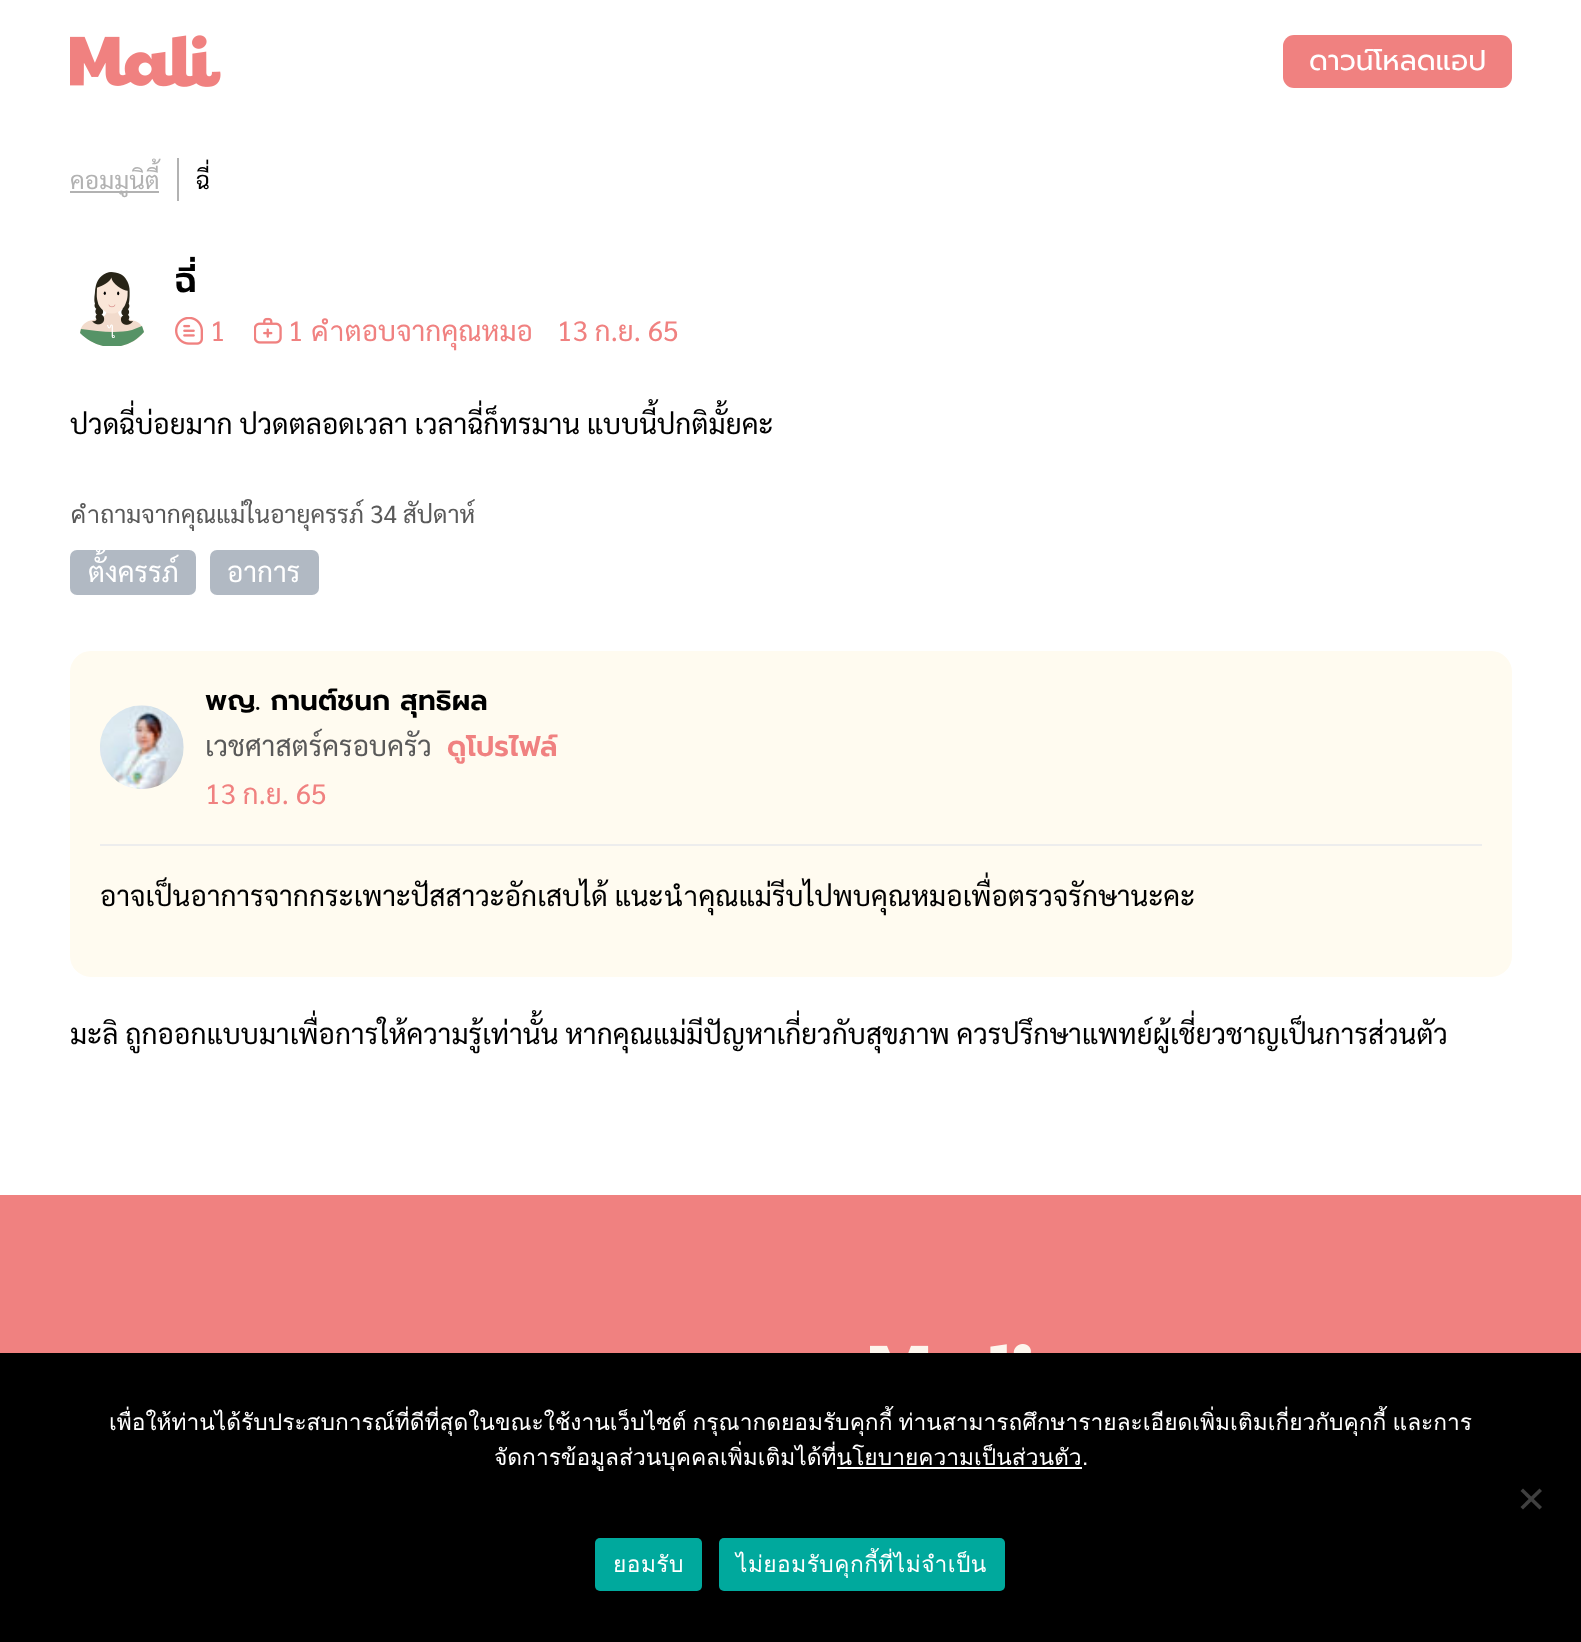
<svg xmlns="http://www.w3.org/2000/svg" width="1581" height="1642">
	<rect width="100%" height="100%" fill="#FFFFFF" />
	<image x="70" y="35" width="151" height="52" href="assets/img1.png" />
	<rect x="1283" y="35" width="229" height="53" rx="11" fill="#F08180" />
	<text x="1309" y="70" font-family="Prompt" font-size="28" fill="#FFFFFF">ดาวน์โหลดแอป</text>
	<rect x="177" y="158" width="2" height="43" fill="#B2B2B2" />
	<rect x="70" y="191" width="89" height="2" fill="#B2B2B2" />
	<text x="70" y="189" font-family="Sarabun" font-size="24.5" fill="#B2B2B2">คอมมูนิตี้</text>
	<text x="196" y="189" font-family="Sarabun" font-size="24.5" fill="#000000">ฉี่</text>
	<path d="M103 346C94 344 86 339 80 332C84 312 108 327 107 307H118C116 328 140 311 144 332C139 339 130 344 121 346Z" fill="#F2DBCC" />
	<ellipse cx="112" cy="293.5" rx="16" ry="20" fill="#FAE6D8" />
	<ellipse cx="104.8" cy="293.3" rx="1.1" ry="1.8" fill="#000000" />
	<ellipse cx="118.2" cy="293.4" rx="1.1" ry="1.8" fill="#000000" />
	<image x="108" y="304" width="8" height="4" href="assets/img3.png" />
	<image x="92" y="272" width="41" height="53" href="assets/img2.png" />
	<path d="M142 326L144 332C138 339 130 344 121 346H103C94 344 86 339 80 333L81 329C98 331 115 334 132 330Z" fill="#569366" />
	<text x="108" y="338" font-family="Loma" font-size="15" fill="#FFFFFF">ไ</text>
	<text x="175" y="292" font-family="Prompt" font-size="35" font-weight="600" fill="#000000">ฉี่</text>
	<image x="175" y="317" width="28" height="28" href="assets/img4.png" />
	<text x="210" y="341" font-family="Sarabun" font-size="28" fill="#F08180">1</text>
	<image x="254" y="317" width="28" height="27" href="assets/img5.png" />
	<g font-family="Sarabun" font-size="28" fill="#F08180">
		<text x="288" y="341">1 คำตอบจากคุณหมอ</text>
		<text x="557" y="341">13 ก.ย. 65</text>
	</g>
	<text x="70" y="434" font-family="Sarabun" font-size="28" fill="#000000">ปวดฉี่บ่อยมาก ปวดตลอดเวลา เวลาฉี่ก็ทรมาน แบบนี้ปกติมั้ยคะ</text>
	<text x="70" y="523" font-family="Sarabun" font-size="24.5" fill="#595959">คำถามจากคุณแม่ในอายุครรภ์ 34 สัปดาห์</text>
	<rect x="70" y="550" width="126" height="45" rx="7" fill="#B1B9C3" />
	<text x="88" y="582" font-family="Sarabun" font-size="28" fill="#FFFFFF">ตั้งครรภ์</text>
	<rect x="210" y="550" width="109" height="45" rx="7" fill="#B1B9C3" />
	<text x="227" y="582" font-family="Sarabun" font-size="28" fill="#FFFFFF">อาการ</text>
	<rect x="71" y="652" width="1440" height="324" rx="20" fill="#FFFBF0" stroke="#FFFBF0" stroke-width="2" />
	<rect x="100" y="844" width="1382" height="2" fill="#EDEDED" />
	<image x="100" y="705" width="84" height="84" href="assets/img6.png" />
	<text x="205" y="710" font-family="Prompt" font-size="28" font-weight="600" fill="#000000">พญ. กานต์ชนก สุทธิผล</text>
	<text x="205" y="756" font-family="Sarabun" font-size="28" fill="#595959">เวชศาสตร์ครอบครัว</text>
	<text x="447" y="756" font-family="Prompt" font-size="28" font-weight="600" fill="#F08180">ดูโปรไฟล์</text>
	<text x="205" y="804" font-family="Sarabun" font-size="28" fill="#F08180">13 ก.ย. 65</text>
	<g font-family="Sarabun" font-size="28" fill="#000000">
		<text x="100" y="906">อาจเป็นอาการจากกระเพาะปัสสาวะอักเสบได้ แนะนำคุณแม่รีบไปพบคุณหมอเพื่อตรวจรักษานะคะ</text>
		<text x="70" y="1044">มะลิ ถูกออกแบบมาเพื่อการให้ความรู้เท่านั้น หากคุณแม่มีปัญหาเกี่ยวกับสุขภาพ ควรปรึกษาแพทย์ผู้เชี่ยวชาญเป็นการส่วนตัว</text>
	</g>
	<rect x="0" y="1195" width="1581" height="158" fill="#F08180" />
	<image x="870" y="1344" width="161" height="9" href="assets/img7.png" />
	<rect x="0" y="1353" width="1581" height="289" fill="#000000" />
	<g font-family="Loma" font-size="22.75" fill="#FFFFFF">
		<text x="109" y="1430" word-spacing="-1.5">เพื่อให้ท่านได้รับประสบการณ์ที่ดีที่สุดในขณะใช้งานเว็บไซต์ กรุณากดยอมรับคุกกี้ ท่านสามารถศึกษารายละเอียดเพิ่มเติมเกี่ยวกับคุกกี้ และการ</text>
		<text x="494" y="1465">จัดการข้อมูลส่วนบุคคลเพิ่มเติมได้ที่นโยบายความเป็นส่วนตัว</text>
	</g>
	<text x="1082" y="1465" font-family="Liberation Sans" font-size="22.75" fill="#FFFFFF">.</text>
	<rect x="837" y="1467" width="245" height="2" fill="#FFFFFF" />
	<path d="M1539.5 1488.5L1542 1491L1523 1509.5L1520.5 1507Z" fill="#404040" />
	<path d="M1520.5 1491L1523 1488.5L1542 1507L1539.5 1509.5Z" fill="#404040" />
	<rect x="595" y="1538" width="107" height="53" rx="5" fill="#00A99D" />
	<text x="613" y="1572" font-family="Loma" font-size="22.75" letter-spacing="0.45" fill="#FFFFFF">ยอมรับ</text>
	<rect x="719" y="1538" width="286" height="53" rx="5" fill="#00A99D" />
	<text x="736" y="1572" font-family="Loma" font-size="22.75" letter-spacing="0.45" fill="#FFFFFF">ไม่ยอมรับคุกกี้ที่ไม่จำเป็น</text>
</svg>
